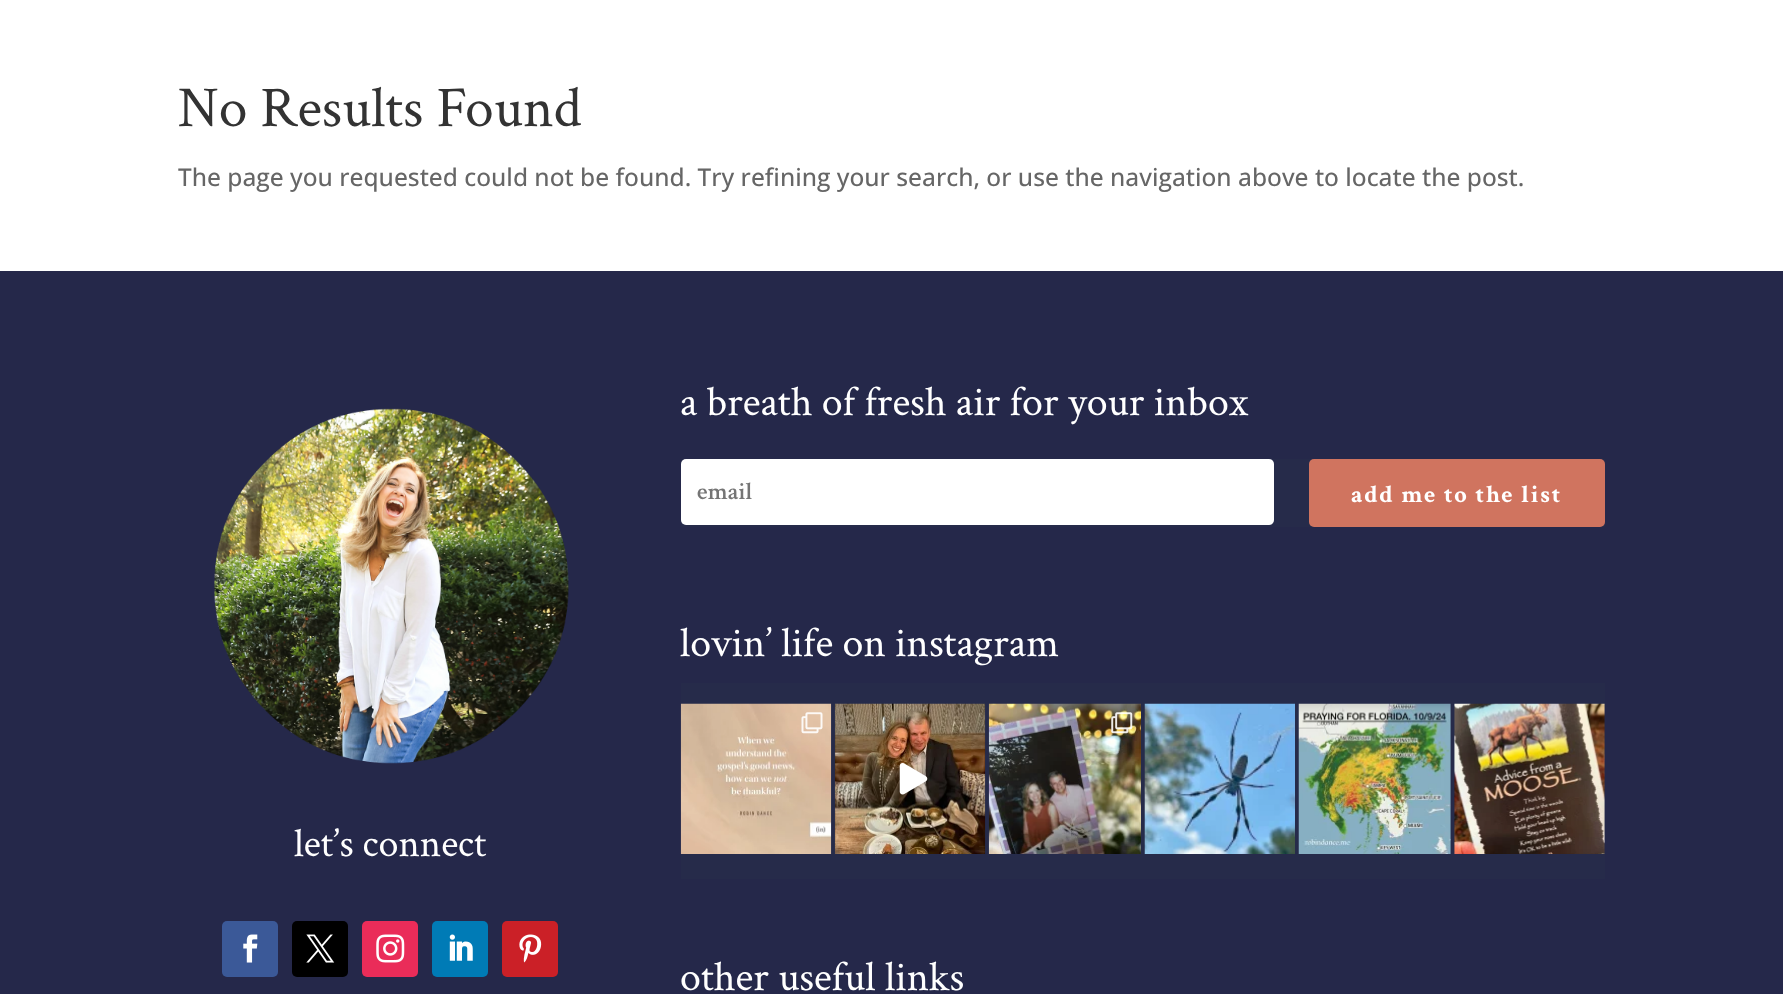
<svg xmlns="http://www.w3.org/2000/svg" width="1783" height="994">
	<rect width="100%" height="100%" fill="#FFFFFF" />
	<text x="178" y="126" font-family="Crimson Text" font-size="57.75" fill="#333333">No Results Found</text>
	<text x="178" y="186" font-family="Open Sans" font-size="24.5" font-weight="500" fill="#666666">The page you requested could not be found. Try refining your search, or use the navigation above to locate the post.</text>
	<rect x="0" y="271" width="1783" height="723" fill="#25284A" />
	<image x="214" y="408" width="355" height="356" href="assets/img1.png" />
	<text x="294" y="856" font-family="Crimson Text" font-size="40.25" fill="#FFFFFF">let’s connect</text>
	<rect x="222" y="921" width="56" height="56" rx="5" fill="#3B5998" />
	<image x="243" y="934" width="15" height="29" href="assets/img2.png" />
	<rect x="292" y="921" width="56" height="56" rx="5" fill="#000000" />
	<image x="306" y="934" width="29" height="29" href="assets/img3.png" />
	<rect x="362" y="921" width="56" height="56" rx="5" fill="#EA2C59" />
	<image x="376" y="934" width="29" height="29" href="assets/img4.png" />
	<rect x="432" y="921" width="56" height="56" rx="5" fill="#007BB6" />
	<image x="449" y="934" width="24" height="27" href="assets/img5.png" />
	<rect x="502" y="921" width="56" height="56" rx="5" fill="#CB2027" />
	<image x="519" y="934" width="23" height="29" href="assets/img6.png" />
	<text x="680" y="415" font-family="Crimson Text" font-size="42" fill="#FFFFFF">a breath of fresh air for your inbox</text>
	<rect x="681" y="459" width="924" height="68" fill="#262B4A" />
	<rect x="681" y="459" width="593" height="66" rx="5" fill="#FFFFFF" />
	<text x="697" y="499" font-family="Crimson Text" font-size="24.5" font-weight="600" fill="#757575">email</text>
	<rect x="1309" y="459" width="296" height="68" rx="5" fill="#D0745F" />
	<text x="1351" y="502" font-family="Crimson Text" font-size="24.5" font-weight="700" letter-spacing="1.75" fill="#FFFFFF">add me to the list</text>
	<text x="680" y="656" font-family="Crimson Text" font-size="42" fill="#FFFFFF">lovin’ life on instagram</text>
	<rect x="681" y="683" width="924" height="196" fill="#262B4A" />
	<image x="680" y="703" width="152" height="151" href="assets/img7.png" />
	<image x="801" y="712" width="22" height="22" href="assets/img8.png" />
	<image x="834" y="703" width="152" height="151" href="assets/img9.png" />
	<image x="899" y="763" width="29" height="32" href="assets/img10.png" />
	<image x="988" y="703" width="153" height="151" href="assets/img11.png" />
	<image x="1111" y="712" width="22" height="22" href="assets/img12.png" />
	<image x="1144" y="703" width="151" height="151" href="assets/img13.png" />
	<image x="1298" y="703" width="153" height="151" href="assets/img14.png" />
	<image x="1454" y="703" width="151" height="151" href="assets/img15.png" />
	<text x="680" y="990" font-family="Crimson Text" font-size="42" fill="#FFFFFF">other useful links</text>
</svg>
